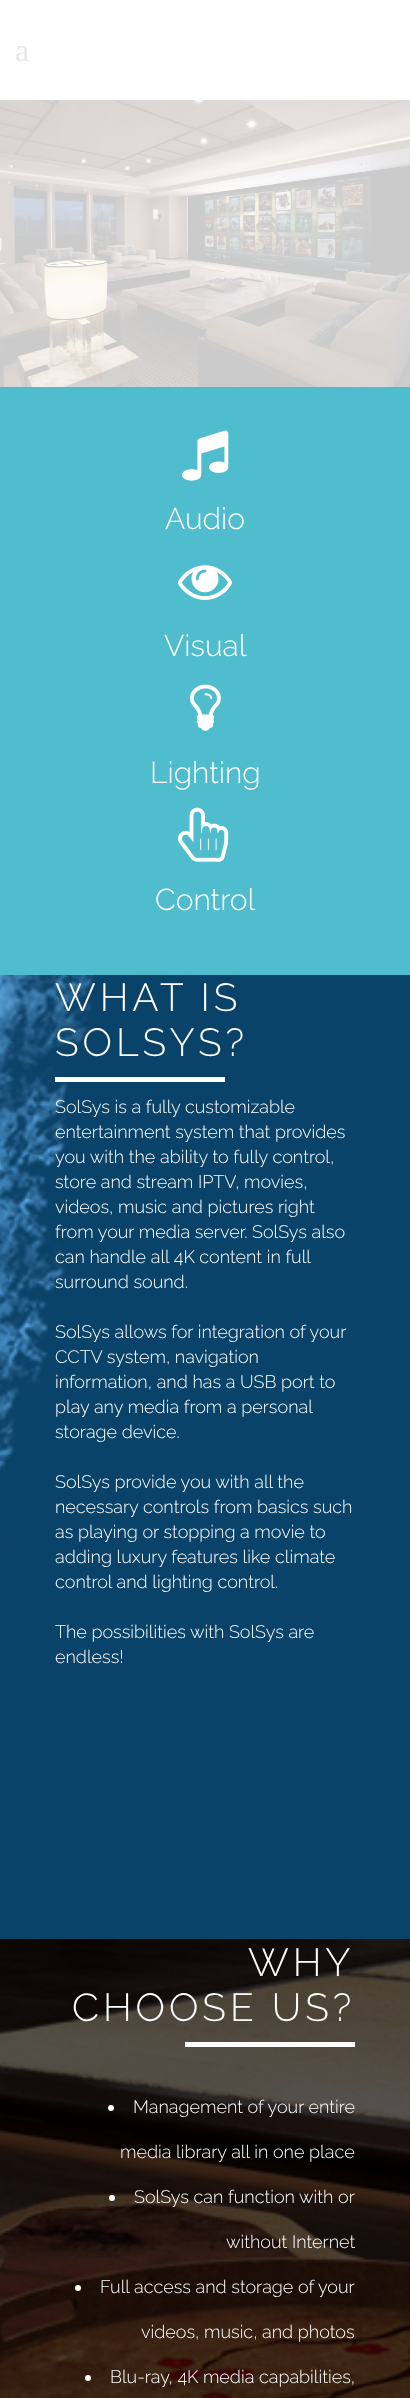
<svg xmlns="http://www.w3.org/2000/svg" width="410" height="2398">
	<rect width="100%" height="100%" fill="#FFFFFF" />
	<text x="15" y="61" font-family="Liberation Serif" font-size="32" fill="#E8E8E8">a</text>
	<image x="0" y="100" width="410" height="287" href="assets/img1.png" />
	<rect x="0" y="387" width="410" height="588" fill="#4FBDCE" />
	<image x="182" y="430" width="47" height="51" href="assets/img2.png" />
	<text x="165" y="529" font-family="Raleway" font-size="30" font-weight="300" fill="#FFFFFF">Audio</text>
	<image x="178" y="565" width="54" height="35" href="assets/img3.png" />
	<text x="164" y="656" font-family="Raleway" font-size="30" font-weight="300" fill="#FFFFFF">Visual</text>
	<image x="190" y="684" width="31" height="47" href="assets/img4.png" />
	<text x="150" y="783" font-family="Raleway" font-size="30" font-weight="300" fill="#FFFFFF">Lighting</text>
	<image x="178" y="807" width="51" height="55" href="assets/img5.png" />
	<text x="155" y="910" font-family="Raleway" font-size="30" font-weight="300" fill="#FFFFFF">Control</text>
	<image x="0" y="975" width="410" height="964" href="assets/img6.png" />
	<g font-family="Raleway" font-size="39" font-weight="300" letter-spacing="4" fill="#FFFFFF">
		<text x="55" y="1011">WHAT IS</text>
		<text x="55" y="1056">SOLSYS?</text>
	</g>
	<rect x="55" y="1077" width="170" height="5" fill="#FFFFFF" />
	<g font-family="Raleway" font-size="18" font-weight="300" fill="#FFFFFF">
		<text x="55" y="1113">SolSys is a fully customizable</text>
		<text x="55" y="1138">entertainment system that provides</text>
		<text x="55" y="1163">you with the ability to fully control,</text>
		<text x="55" y="1188">store and stream IPTV, movies,</text>
		<text x="55" y="1213">videos, music and pictures right</text>
		<text x="55" y="1238">from your media server. SolSys also</text>
		<text x="55" y="1263">can handle all 4K content in full</text>
		<text x="55" y="1288">surround sound.</text>
		<text x="55" y="1338">SolSys allows for integration of your</text>
		<text x="55" y="1363">CCTV system, navigation</text>
		<text x="55" y="1388">information, and has a USB port to</text>
		<text x="55" y="1413">play any media from a personal</text>
		<text x="55" y="1438">storage device.</text>
		<text x="55" y="1488">SolSys provide you with all the</text>
		<text x="55" y="1513">necessary controls from basics such</text>
		<text x="55" y="1538">as playing or stopping a movie to</text>
		<text x="55" y="1563">adding luxury features like climate</text>
		<text x="55" y="1588">control and lighting control.</text>
		<text x="55" y="1638">The possibilities with SolSys are</text>
		<text x="55" y="1663">endless!</text>
	</g>
	<image x="0" y="1939" width="410" height="459" href="assets/img7.png" />
	<g font-family="Raleway" font-size="39" font-weight="300" letter-spacing="4" fill="#FFFFFF">
		<text x="248" y="1976">WHY</text>
		<text x="72" y="2021">CHOOSE US?</text>
	</g>
	<rect x="185" y="2042" width="170" height="5" fill="#FFFFFF" />
	<circle cx="111" cy="2108" r="3" fill="#FFFFFF" />
	<g font-family="Raleway" font-size="18" font-weight="300" fill="#FFFFFF">
		<text x="133" y="2113">Management of your entire</text>
		<text x="120" y="2158">media library all in one place</text>
	</g>
	<circle cx="112" cy="2198" r="3" fill="#FFFFFF" />
	<g font-family="Raleway" font-size="18" font-weight="300" fill="#FFFFFF">
		<text x="134" y="2203">SolSys can function with or</text>
		<text x="226" y="2248">without Internet</text>
	</g>
	<circle cx="78" cy="2288" r="3" fill="#FFFFFF" />
	<g font-family="Raleway" font-size="18" font-weight="300" fill="#FFFFFF">
		<text x="100" y="2293">Full access and storage of your</text>
		<text x="141" y="2338">videos, music, and photos</text>
	</g>
	<circle cx="88" cy="2378" r="3" fill="#FFFFFF" />
	<text x="110" y="2383" font-family="Raleway" font-size="18" font-weight="300" fill="#FFFFFF">Blu-ray, 4K media capabilities,</text>
</svg>
